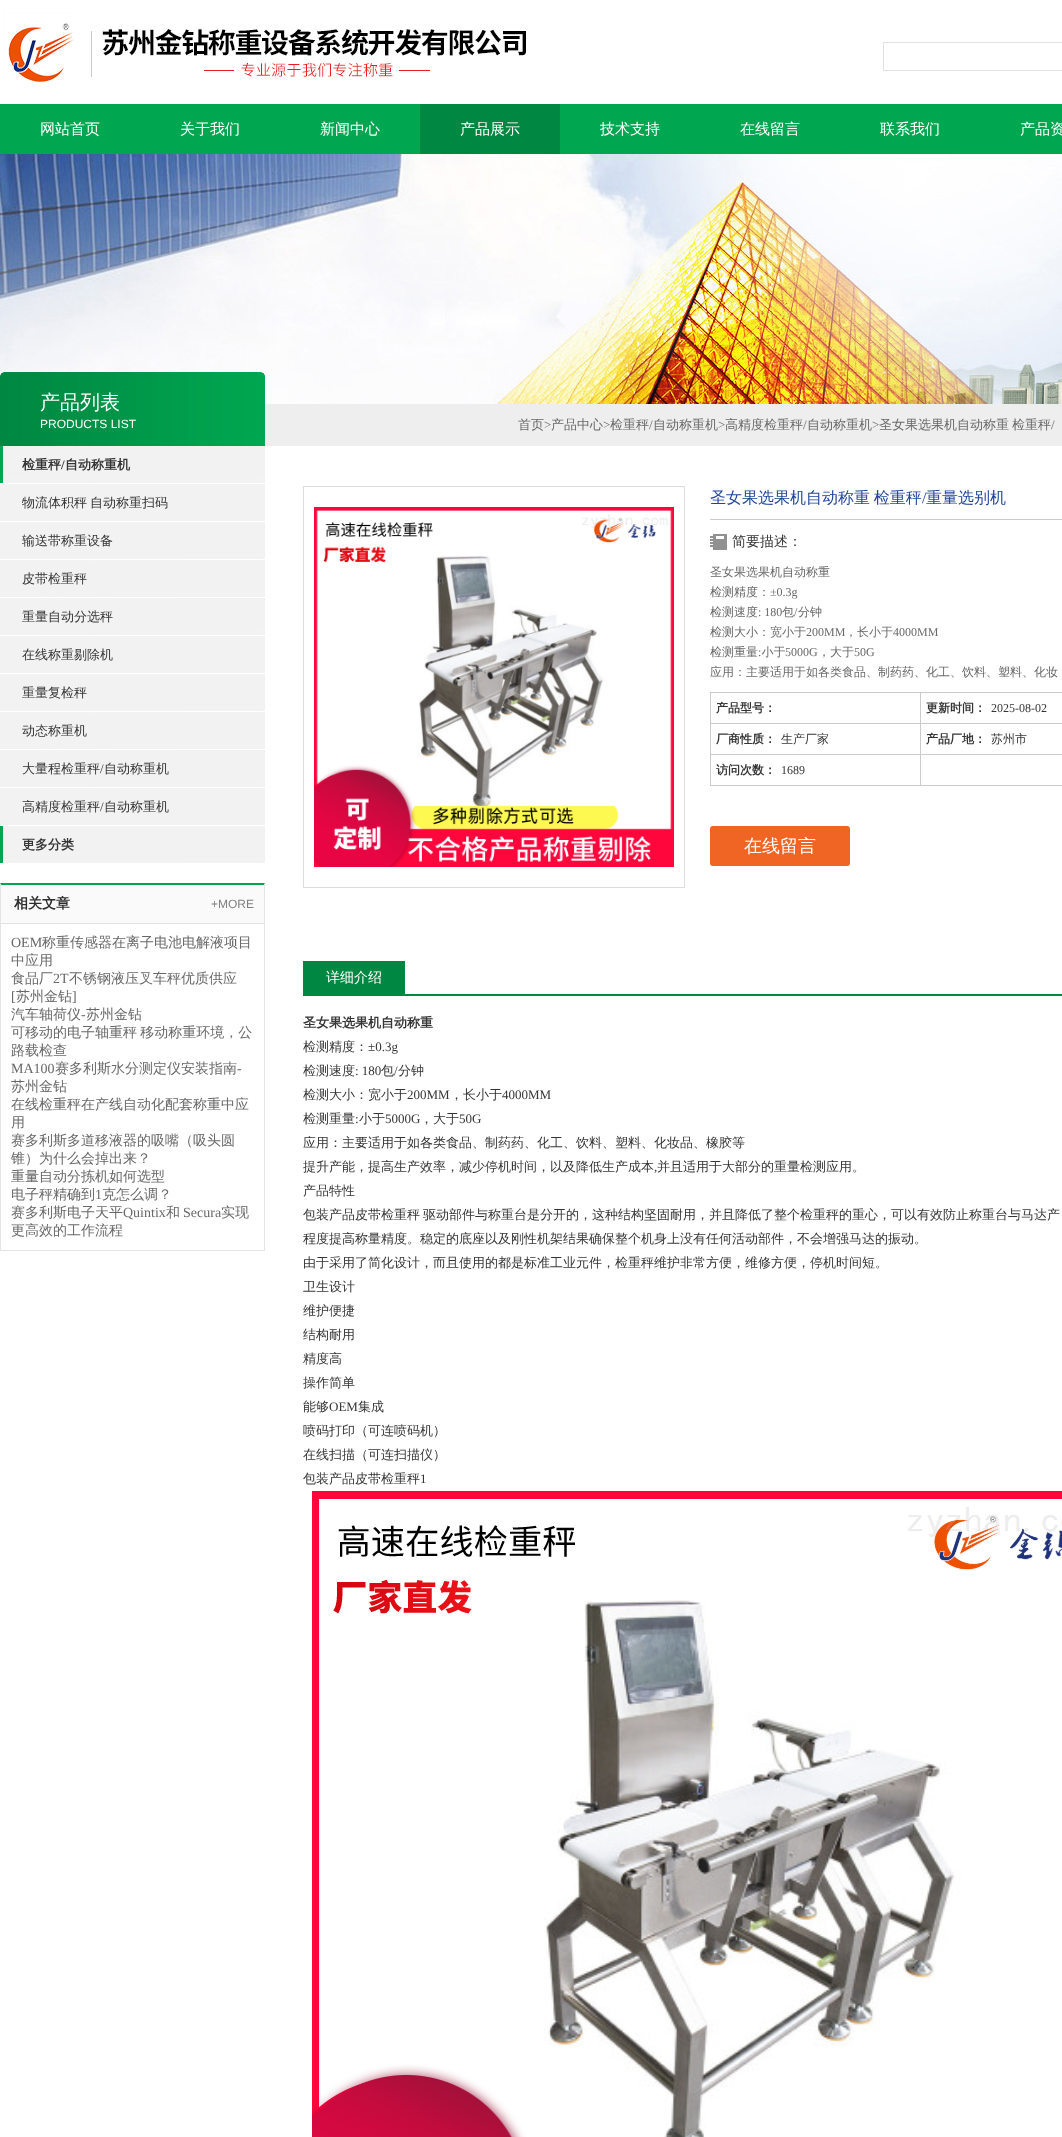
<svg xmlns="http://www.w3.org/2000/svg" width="1062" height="2137">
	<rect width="100%" height="100%" fill="#FFFFFF" />
	<rect x="265" y="404" width="797" height="42" fill="#EEEEEE" />
	<image x="3" y="13" width="523" height="69" href="assets/img1.png" />
	<rect x="883" y="42" width="179" height="1" fill="#E1E1E1" />
	<rect x="883" y="70" width="179" height="1" fill="#E1E1E1" />
	<rect x="883" y="42" width="1" height="29" fill="#E1E1E1" />
	<rect x="0" y="104" width="1062" height="50" fill="#00A650" />
	<g font-family="WenQuanYi Zen Hei" font-size="15" font-weight="500" fill="#FFFFFF">
		<text x="40" y="134">网站首页</text>
		<text x="180" y="134">关于我们</text>
		<text x="320" y="134">新闻中心</text>
	</g>
	<rect x="420" y="104" width="140" height="50" fill="#008742" />
	<g font-family="WenQuanYi Zen Hei" font-size="15" font-weight="500" fill="#FFFFFF">
		<text x="460" y="134">产品展示</text>
		<text x="600" y="134">技术支持</text>
		<text x="740" y="134">在线留言</text>
		<text x="880" y="134">联系我们</text>
		<text x="1020" y="134">产品资</text>
	</g>
	<image x="0" y="154" width="1062" height="250" href="assets/img2.png" />
	<image x="0" y="372" width="265" height="74" href="assets/img3.png" />
	<text x="40" y="409" font-family="WenQuanYi Zen Hei" font-size="20" font-weight="500" fill="#FFFFFF">产品列表</text>
	<text x="40" y="428" font-family="Liberation Sans" font-size="12" fill="#FFFFFF">PRODUCTS LIST</text>
	<image x="0" y="446" width="265" height="37" href="assets/img4.png" />
	<text x="22" y="469" font-family="WenQuanYi Zen Hei" font-size="13" font-weight="700" fill="#353535">检重秤 自动称重机</text>
	<text x="61" y="469" font-family="Liberation Serif" font-size="13" font-weight="700" fill="#353535">/</text>
	<image x="0" y="484" width="265" height="37" href="assets/img5.png" />
	<text x="22" y="507" word-spacing="-1" font-family="WenQuanYi Zen Hei" font-size="13" font-weight="500" fill="#353535">物流体积秤 自动称重扫码</text>
	<image x="0" y="522" width="265" height="37" href="assets/img5.png" />
	<text x="22" y="545" font-family="WenQuanYi Zen Hei" font-size="13" font-weight="500" fill="#353535">输送带称重设备</text>
	<image x="0" y="560" width="265" height="37" href="assets/img5.png" />
	<text x="22" y="583" font-family="WenQuanYi Zen Hei" font-size="13" font-weight="500" fill="#353535">皮带检重秤</text>
	<image x="0" y="598" width="265" height="37" href="assets/img5.png" />
	<text x="22" y="621" font-family="WenQuanYi Zen Hei" font-size="13" font-weight="500" fill="#353535">重量自动分选秤</text>
	<image x="0" y="636" width="265" height="37" href="assets/img5.png" />
	<text x="22" y="659" font-family="WenQuanYi Zen Hei" font-size="13" font-weight="500" fill="#353535">在线称重剔除机</text>
	<image x="0" y="674" width="265" height="37" href="assets/img5.png" />
	<text x="22" y="697" font-family="WenQuanYi Zen Hei" font-size="13" font-weight="500" fill="#353535">重量复检秤</text>
	<image x="0" y="712" width="265" height="37" href="assets/img5.png" />
	<text x="22" y="735" font-family="WenQuanYi Zen Hei" font-size="13" font-weight="500" fill="#353535">动态称重机</text>
	<image x="0" y="750" width="265" height="37" href="assets/img5.png" />
	<text x="22" y="773" font-family="WenQuanYi Zen Hei" font-size="13" font-weight="500" fill="#353535">大量程检重秤 自动称重机</text>
	<text x="100" y="773" font-family="Liberation Serif" font-size="13" fill="#353535">/</text>
	<image x="0" y="788" width="265" height="37" href="assets/img5.png" />
	<text x="22" y="811" font-family="WenQuanYi Zen Hei" font-size="13" font-weight="500" fill="#353535">高精度检重秤 自动称重机</text>
	<text x="100" y="811" font-family="Liberation Serif" font-size="13" fill="#353535">/</text>
	<image x="0" y="826" width="265" height="37" href="assets/img4.png" />
	<text x="22" y="849" font-family="WenQuanYi Zen Hei" font-size="13" font-weight="700" fill="#353535">更多分类</text>
	<path d="M0 883H265L264 885H1Z" fill="#00A650" />
	<path d="M265 883V1251L264 1250V885Z" fill="#E4E4E4" />
	<rect x="0" y="1250" width="265" height="1" fill="#E4E4E4" />
	<path d="M0 1251V883L1 885V1250Z" fill="#E4E4E4" />
	<rect x="1" y="885" width="263" height="38" fill="#FAFAFA" />
	<rect x="1" y="923" width="263" height="1" fill="#E2E2E2" />
	<text x="14" y="908" font-family="WenQuanYi Zen Hei" font-size="14" font-weight="700" fill="#2D2D2D">相关文章</text>
	<text x="211" y="908" font-family="Liberation Sans" font-size="12" fill="#808080">+MORE</text>
	<text x="11" y="947" font-family="Liberation Serif" font-size="14" fill="#686868">OEM</text>
	<g font-family="WenQuanYi Zen Hei" font-size="14" font-weight="500" fill="#686868">
		<text x="42" y="947">称重传感器在离子电池电解液项目</text>
		<text x="11" y="965">中应用</text>
		<text x="11" y="983">食品厂</text>
	</g>
	<text x="53" y="983" font-family="Liberation Serif" font-size="14" fill="#686868">2T</text>
	<text x="69" y="983" font-family="WenQuanYi Zen Hei" font-size="14" font-weight="500" fill="#686868">不锈钢液压叉车秤优质供应</text>
	<text x="11" y="1001" font-family="Liberation Serif" font-size="14" fill="#686868">[</text>
	<text x="16" y="1001" font-family="WenQuanYi Zen Hei" font-size="14" font-weight="500" fill="#686868">苏州金钻</text>
	<text x="72" y="1001" font-family="Liberation Serif" font-size="14" fill="#686868">]</text>
	<text x="11" y="1019" font-family="WenQuanYi Zen Hei" font-size="14" font-weight="500" fill="#686868">汽车轴荷仪</text>
	<text x="81" y="1019" font-family="Liberation Serif" font-size="14" fill="#686868">-</text>
	<g font-family="WenQuanYi Zen Hei" font-size="14" font-weight="500" fill="#686868">
		<text x="86" y="1019">苏州金钻</text>
		<text x="11" y="1037" word-spacing="-1">可移动的电子轴重秤 移动称重环境，公</text>
		<text x="11" y="1055">路载检查</text>
	</g>
	<text x="11" y="1073" font-family="Liberation Serif" font-size="14" fill="#686868">MA100</text>
	<text x="55" y="1073" font-family="WenQuanYi Zen Hei" font-size="14" font-weight="500" fill="#686868">赛多利斯水分测定仪安装指南</text>
	<text x="237" y="1073" font-family="Liberation Serif" font-size="14" fill="#686868">-</text>
	<g font-family="WenQuanYi Zen Hei" font-size="14" font-weight="500" fill="#686868">
		<text x="11" y="1091">苏州金钻</text>
		<text x="11" y="1109">在线检重秤在产线自动化配套称重中应</text>
		<text x="11" y="1127">用</text>
		<text x="11" y="1145">赛多利斯多道移液器的吸嘴（吸头圆</text>
		<text x="11" y="1163">锥）为什么会掉出来？</text>
		<text x="11" y="1181">重量自动分拣机如何选型</text>
		<text x="11" y="1199">电子秤精确到</text>
	</g>
	<text x="95" y="1199" font-family="Liberation Serif" font-size="14" fill="#686868">1</text>
	<g font-family="WenQuanYi Zen Hei" font-size="14" font-weight="500" fill="#686868">
		<text x="102" y="1199">克怎么调？</text>
		<text x="11" y="1217">赛多利斯电子天平</text>
	</g>
	<text x="123" y="1217" font-family="Liberation Serif" font-size="14" fill="#686868">Quintix</text>
	<text x="166" y="1217" font-family="WenQuanYi Zen Hei" font-size="14" font-weight="500" fill="#686868">和</text>
	<text x="183" y="1217" font-family="Liberation Serif" font-size="14" fill="#686868">Secura</text>
	<g font-family="WenQuanYi Zen Hei" font-size="14" font-weight="500" fill="#686868">
		<text x="221" y="1217">实现</text>
		<text x="11" y="1235">更高效的工作流程</text>
	</g>
	<g font-family="WenQuanYi Zen Hei" font-size="13" font-weight="500" fill="#686868">
		<text x="518" y="429">首页</text>
		<text x="551" y="429">产品中心</text>
		<text x="610" y="429">检重秤 自动称重机</text>
		<text x="725" y="429">高精度检重秤 自动称重机</text>
		<text x="879" y="429" word-spacing="-1">圣女果选果机自动称重 检重秤</text>
	</g>
	<g font-family="Liberation Serif" font-size="13" fill="#686868">
		<text x="544" y="429">&gt;</text>
		<text x="603" y="429">&gt;</text>
		<text x="649" y="429">/</text>
		<text x="718" y="429">&gt;</text>
		<text x="803" y="429">/</text>
		<text x="872" y="429">&gt;</text>
		<text x="1051" y="429">/</text>
	</g>
	<rect x="303.5" y="486.5" width="381" height="401" fill="none" stroke="#DDDDDD" />
	<image x="314" y="507" width="360" height="360" href="assets/img6.png" />
	<rect x="710" y="519" width="352" height="1" fill="#CCCCCC" />
	<text x="710" y="503" word-spacing="-1" font-family="WenQuanYi Zen Hei" font-size="16" font-weight="500" fill="#22469A">圣女果选果机自动称重 检重秤</text>
	<text x="922" y="503" font-family="Liberation Serif" font-size="16" fill="#22469A">/</text>
	<text x="926" y="503" font-family="WenQuanYi Zen Hei" font-size="16" font-weight="500" fill="#22469A">重量选别机</text>
	<image x="710" y="534" width="17" height="16" href="assets/img7.png" />
	<text x="732" y="546" font-family="WenQuanYi Zen Hei" font-size="14" font-weight="500" fill="#353535">简要描述：</text>
	<g font-family="WenQuanYi Zen Hei" font-size="12" font-weight="500" fill="#686868">
		<text x="710" y="576">圣女果选果机自动称重</text>
		<text x="710" y="596">检测精度：</text>
	</g>
	<text x="770" y="596" font-family="Liberation Serif" font-size="12" fill="#686868">±0.3g</text>
	<text x="710" y="616" font-family="WenQuanYi Zen Hei" font-size="12" font-weight="500" fill="#686868">检测速度</text>
	<text x="758" y="616" font-family="Liberation Serif" font-size="12" fill="#686868">: 180</text>
	<text x="782" y="616" font-family="WenQuanYi Zen Hei" font-size="12" font-weight="500" fill="#686868">包</text>
	<text x="794" y="616" font-family="Liberation Serif" font-size="12" fill="#686868">/</text>
	<g font-family="WenQuanYi Zen Hei" font-size="12" font-weight="500" fill="#686868">
		<text x="798" y="616">分钟</text>
		<text x="710" y="636">检测大小：宽小于</text>
	</g>
	<text x="806" y="636" font-family="Liberation Serif" font-size="12" fill="#686868">200MM</text>
	<text x="845" y="636" font-family="WenQuanYi Zen Hei" font-size="12" font-weight="500" fill="#686868">，长小于</text>
	<text x="893" y="636" font-family="Liberation Serif" font-size="12" fill="#686868">4000MM</text>
	<text x="710" y="656" font-family="WenQuanYi Zen Hei" font-size="12" font-weight="500" fill="#686868">检测重量 小于</text>
	<text x="785" y="656" font-family="Liberation Serif" font-size="12" fill="#686868">5000G</text>
	<text x="818" y="656" font-family="WenQuanYi Zen Hei" font-size="12" font-weight="500" fill="#686868">，大于</text>
	<g font-family="Liberation Serif" font-size="12" fill="#686868">
		<text x="854" y="656">50G</text>
		<text x="758" y="656">:</text>
	</g>
	<text x="710" y="676" font-family="WenQuanYi Zen Hei" font-size="12" font-weight="500" fill="#686868">应用：主要适用于如各类食品、制药药、化工、饮料、塑料、化妆</text>
	<rect x="710" y="692" width="352" height="1" fill="#CCCCCC" />
	<rect x="710" y="785" width="352" height="1" fill="#CCCCCC" />
	<rect x="710" y="692" width="1" height="94" fill="#CCCCCC" />
	<rect x="920" y="693" width="1" height="92" fill="#CCCCCC" />
	<rect x="711" y="723" width="351" height="1" fill="#CCCCCC" />
	<g font-family="WenQuanYi Zen Hei" font-size="12" font-weight="700" fill="#353535">
		<text x="716" y="712">产品型号：</text>
		<text x="926" y="712">更新时间：</text>
	</g>
	<text x="991" y="712" font-family="Liberation Serif" font-size="12" fill="#353535">2025-08-02</text>
	<rect x="711" y="754" width="351" height="1" fill="#CCCCCC" />
	<text x="716" y="743" font-family="WenQuanYi Zen Hei" font-size="12" font-weight="700" fill="#353535">厂商性质：</text>
	<text x="781" y="743" font-family="WenQuanYi Zen Hei" font-size="12" font-weight="500" fill="#353535">生产厂家</text>
	<text x="926" y="743" font-family="WenQuanYi Zen Hei" font-size="12" font-weight="700" fill="#353535">产品厂地：</text>
	<text x="991" y="743" font-family="WenQuanYi Zen Hei" font-size="12" font-weight="500" fill="#353535">苏州市</text>
	<text x="716" y="774" font-family="WenQuanYi Zen Hei" font-size="12" font-weight="700" fill="#353535">访问次数：</text>
	<text x="781" y="774" font-family="Liberation Serif" font-size="12" fill="#353535">1689</text>
	<rect x="710" y="826" width="140" height="40" rx="3" fill="#F06524" />
	<text x="744" y="852" font-family="WenQuanYi Zen Hei" font-size="18" font-weight="500" fill="#FFFFFF">在线留言</text>
	<rect x="303" y="994" width="759" height="2" fill="#008742" />
	<rect x="303" y="961" width="102" height="33" fill="#008742" />
	<text x="326" y="982" font-family="WenQuanYi Zen Hei" font-size="14" font-weight="500" fill="#FFFFFF">详细介绍</text>
	<text x="303" y="1027" font-family="WenQuanYi Zen Hei" font-size="13" font-weight="700" fill="#353535">圣女果选果机自动称重</text>
	<text x="303" y="1051" font-family="WenQuanYi Zen Hei" font-size="13" font-weight="500" fill="#353535">检测精度：</text>
	<text x="368" y="1051" font-family="Liberation Serif" font-size="13" fill="#353535">±0.3g</text>
	<text x="303" y="1075" font-family="WenQuanYi Zen Hei" font-size="13" font-weight="500" fill="#353535">检测速度</text>
	<text x="355" y="1075" font-family="Liberation Serif" font-size="13" fill="#353535">: 180</text>
	<text x="381" y="1075" font-family="WenQuanYi Zen Hei" font-size="13" font-weight="500" fill="#353535">包 分钟</text>
	<text x="394" y="1075" font-family="Liberation Serif" font-size="13" fill="#353535">/</text>
	<text x="303" y="1099" font-family="WenQuanYi Zen Hei" font-size="13" font-weight="500" fill="#353535">检测大小：宽小于</text>
	<text x="407" y="1099" font-family="Liberation Serif" font-size="13" fill="#353535">200MM</text>
	<text x="450" y="1099" font-family="WenQuanYi Zen Hei" font-size="13" font-weight="500" fill="#353535">，长小于</text>
	<text x="502" y="1099" font-family="Liberation Serif" font-size="13" fill="#353535">4000MM</text>
	<text x="303" y="1123" font-family="WenQuanYi Zen Hei" font-size="13" font-weight="500" fill="#353535">检测重量 小于</text>
	<text x="385" y="1123" font-family="Liberation Serif" font-size="13" fill="#353535">5000G</text>
	<text x="420" y="1123" font-family="WenQuanYi Zen Hei" font-size="13" font-weight="500" fill="#353535">，大于</text>
	<g font-family="Liberation Serif" font-size="13" fill="#353535">
		<text x="459" y="1123">50G</text>
		<text x="355" y="1123">:</text>
	</g>
	<g font-family="WenQuanYi Zen Hei" font-size="13" font-weight="500" fill="#353535">
		<text x="303" y="1147">应用：主要适用于如各类食品、制药药、化工、饮料、塑料、化妆品、橡胶等</text>
		<text x="303" y="1171">提升产能，提高生产效率，减少停机时间，以及降低生产成本</text>
	</g>
	<text x="654" y="1171" font-family="Liberation Serif" font-size="13" fill="#353535">,</text>
	<g font-family="WenQuanYi Zen Hei" font-size="13" font-weight="500" fill="#353535">
		<text x="657" y="1171">并且适用于大部分的重量检测应用。</text>
		<text x="303" y="1195">产品特性</text>
		<text x="303" y="1219" word-spacing="-1">包装产品皮带检重秤 驱动部件与称重台是分开的，这种结构坚固耐用，并且降低了整个检重秤的重心，可以有效防止称重台与马达产</text>
		<text x="303" y="1243">程度提高称量精度。稳定的底座以及刚性机架结果确保整个机身上没有任何活动部件，不会增强马达的振动。</text>
		<text x="303" y="1267">由于采用了简化设计，而且使用的都是标准工业元件，检重秤维护非常方便，维修方便，停机时间短。</text>
		<text x="303" y="1291">卫生设计</text>
		<text x="303" y="1315">维护便捷</text>
		<text x="303" y="1339">结构耐用</text>
		<text x="303" y="1363">精度高</text>
		<text x="303" y="1387">操作简单</text>
		<text x="303" y="1411">能够</text>
	</g>
	<text x="329" y="1411" font-family="Liberation Serif" font-size="13" fill="#353535">OEM</text>
	<g font-family="WenQuanYi Zen Hei" font-size="13" font-weight="500" fill="#353535">
		<text x="358" y="1411">集成</text>
		<text x="303" y="1435">喷码打印（可连喷码机）</text>
		<text x="303" y="1459">在线扫描（可连扫描仪）</text>
		<text x="303" y="1483">包装产品皮带检重秤</text>
	</g>
	<text x="420" y="1483" font-family="Liberation Serif" font-size="13" fill="#353535">1</text>
	<image x="312" y="1491" width="750" height="646" href="assets/img8.png" />
</svg>
